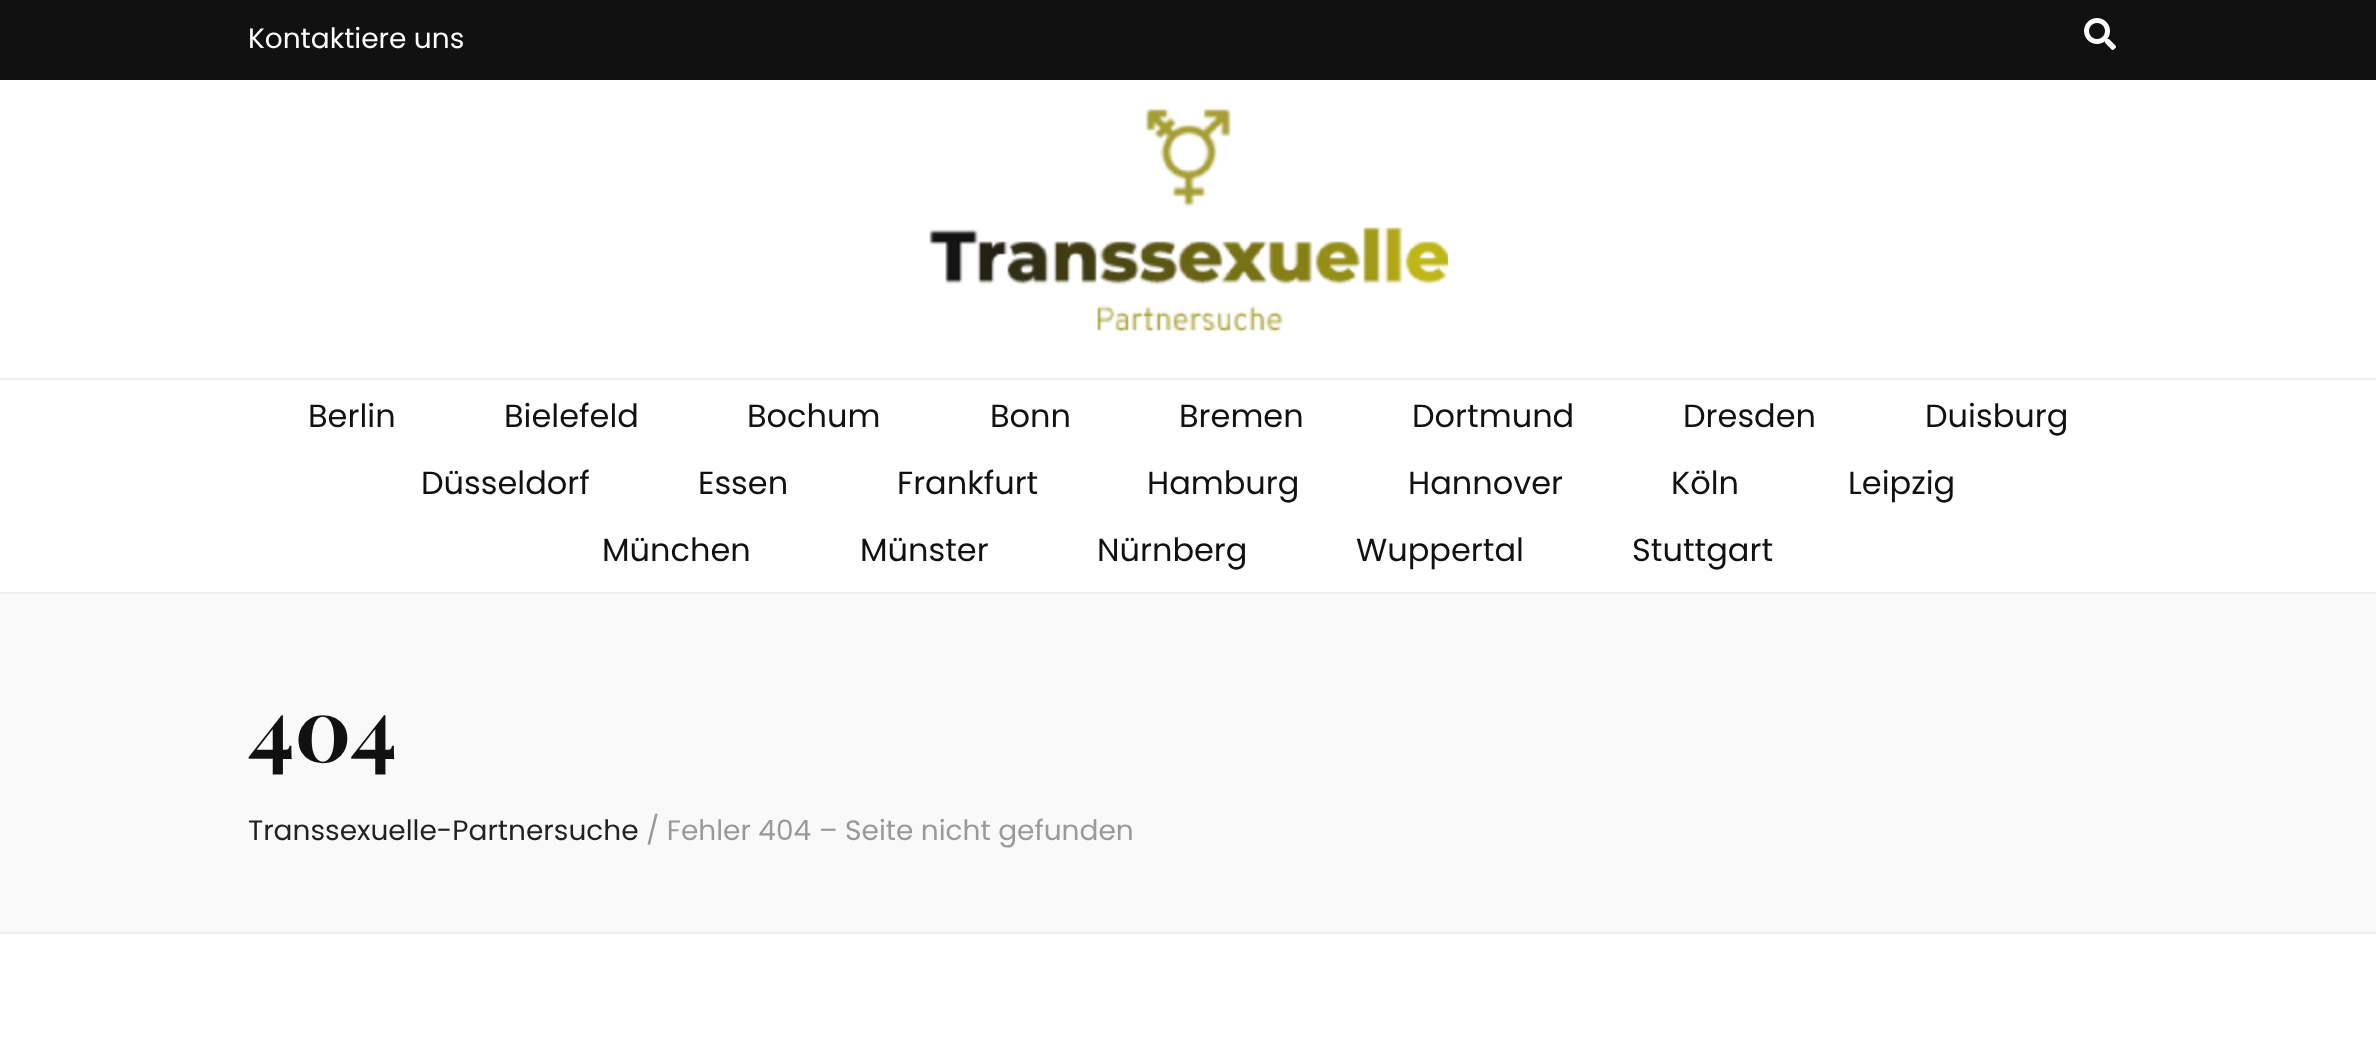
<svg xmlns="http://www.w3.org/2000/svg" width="2376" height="1043">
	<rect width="100%" height="100%" fill="#FFFFFF" />
	<rect x="0" y="0" width="2376" height="80" fill="#111111" />
	<text x="248" y="48" font-family="Poppins" font-size="28" fill="#FFFFFF">Kontaktiere uns</text>
	<image x="2084" y="18" width="32" height="32" href="assets/img1.png" />
	<image x="929" y="107" width="519" height="226" href="assets/img2.png" />
	<rect x="0" y="378" width="2376" height="2" fill="#EEEEEE" />
	<rect x="0" y="592" width="2376" height="2" fill="#EEEEEE" />
	<g font-family="Poppins" font-size="32" fill="#111111">
		<text x="308" y="427">Berlin</text>
		<text x="504" y="427">Bielefeld</text>
		<text x="747" y="427">Bochum</text>
		<text x="990" y="427">Bonn</text>
		<text x="1179" y="427">Bremen</text>
		<text x="1412" y="427">Dortmund</text>
		<text x="1683" y="427">Dresden</text>
		<text x="1925" y="427">Duisburg</text>
		<text x="421" y="494">Düsseldorf</text>
		<text x="698" y="494">Essen</text>
		<text x="897" y="494">Frankfurt</text>
		<text x="1147" y="494">Hamburg</text>
		<text x="1408" y="494">Hannover</text>
		<text x="1671" y="494">Köln</text>
		<text x="1848" y="494">Leipzig</text>
		<text x="602" y="561">München</text>
		<text x="860" y="561">Münster</text>
		<text x="1097" y="561">Nürnberg</text>
		<text x="1356" y="561">Wuppertal</text>
		<text x="1632" y="561">Stuttgart</text>
	</g>
	<rect x="0" y="594" width="2376" height="338" fill="#F9F9F9" />
	<rect x="0" y="932" width="2376" height="2" fill="#EEEEEE" />
	<text x="248" y="762" font-family="Playfair Display" font-size="88" font-weight="700" fill="#111111">404</text>
	<text x="248" y="840" font-family="Poppins" font-size="28" fill="#222222">Transsexuelle-Partnersuche</text>
	<text x="646" y="840" font-family="Poppins" font-size="28" fill="#999999">/ Fehler 404 – Seite nicht gefunden</text>
</svg>
